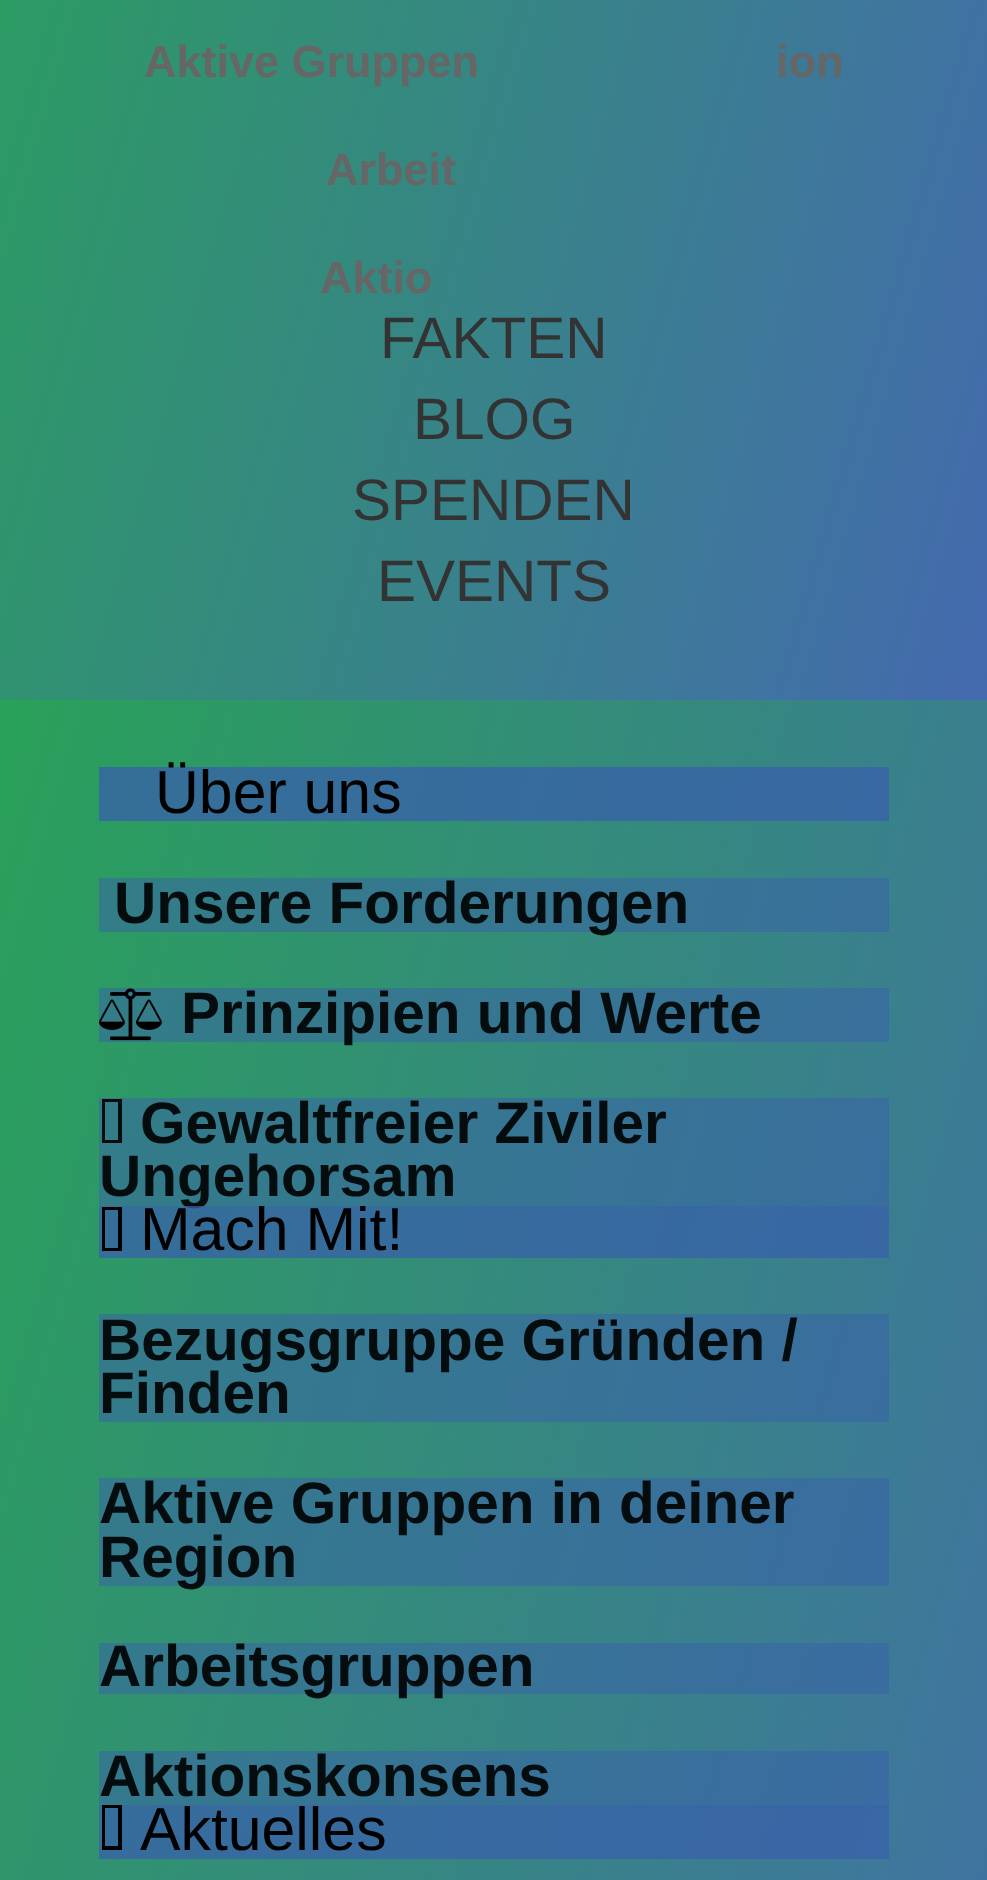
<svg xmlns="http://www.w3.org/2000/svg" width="987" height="1880">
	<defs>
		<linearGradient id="g1" gradientUnits="userSpaceOnUse" x1="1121" y1="236" x2="-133" y2="-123"><stop offset="0" stop-color="#446AAF" /><stop offset="1" stop-color="#29A259" /></linearGradient>
		<linearGradient id="g2" gradientUnits="userSpaceOnUse" x1="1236" y1="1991" x2="-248" y2="1566"><stop offset="0" stop-color="#446AAF" /><stop offset="1" stop-color="#29A159" /></linearGradient>
		<linearGradient id="g3" gradientUnits="userSpaceOnUse" x1="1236" y1="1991" x2="-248" y2="1566"><stop offset="0" stop-color="#3B63AB" /><stop offset="1" stop-color="#347096" /></linearGradient>
		<linearGradient id="g4" gradientUnits="userSpaceOnUse" x1="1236" y1="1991" x2="-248" y2="1566"><stop offset="0" stop-color="#3E65AC" /><stop offset="1" stop-color="#318082" /></linearGradient>
	</defs>
	<rect width="100%" height="100%" fill="#FFFFFF" />
	<rect x="0" y="0" width="987" height="700" fill="url(#g1)" />
	<g font-family="Liberation Sans" font-size="45" font-weight="700" fill="#666666">
		<text x="144" y="77">Aktive Gruppen</text>
		<text x="776" y="77">ion</text>
		<text x="326" y="185">Arbeit</text>
		<text x="320" y="293">Aktio</text>
	</g>
	<g font-family="Liberation Sans" font-size="58.5" fill="#333333">
		<text x="380" y="358">FAKTEN</text>
		<text x="413" y="439">BLOG</text>
		<text x="352" y="520">SPENDEN</text>
		<text x="377" y="601">EVENTS</text>
	</g>
	<rect x="0" y="700" width="987" height="1180" fill="url(#g2)" />
	<rect x="99" y="1805" width="790" height="54" fill="url(#g3)" />
	<rect x="99" y="1751" width="790" height="54" fill="url(#g4)" />
	<rect x="99" y="1643" width="790" height="51" fill="url(#g4)" />
	<rect x="99" y="1478" width="790" height="108" fill="url(#g4)" />
	<rect x="99" y="1314" width="790" height="108" fill="url(#g4)" />
	<rect x="99" y="1098" width="790" height="108" fill="url(#g4)" />
	<rect x="99" y="988" width="790" height="54" fill="url(#g4)" />
	<rect x="99" y="878" width="790" height="54" fill="url(#g4)" />
	<rect x="99" y="767" width="790" height="54" fill="url(#g3)" />
	<text x="155" y="813" font-family="Liberation Sans" font-size="60.75" fill="#000000">Über uns</text>
	<text x="114" y="923" font-family="Liberation Sans" font-size="58.5" font-weight="700" fill="#050C0E">Unsere Forderungen</text>
	<image x="99" y="988" width="63" height="53" href="assets/img1.png" />
	<text x="181" y="1033" font-family="Liberation Sans" font-size="58.5" font-weight="700" fill="#050C0E">Prinzipien und Werte</text>
	<path d="M105 1140V1102H118V1140ZM102 1143H122V1099H102Z" fill="#050C0E" />
	<g font-family="Liberation Sans" font-size="58.5" font-weight="700" fill="#050C0E">
		<text x="140" y="1143">Gewaltfreier Ziviler</text>
		<text x="99" y="1196">Ungehorsam</text>
	</g>
	<rect x="99" y="1206" width="790" height="52" fill="#3860AA" fill-opacity="0.75" />
	<path d="M105 1248V1210H118V1248ZM102 1251H122V1207H102Z" fill="#000000" />
	<text x="140" y="1250" font-family="Liberation Sans" font-size="60.75" fill="#000000">Mach Mit!</text>
	<g font-family="Liberation Sans" font-size="58.5" font-weight="700" fill="#050C0E">
		<text x="99" y="1360">Bezugsgruppe Gründen /</text>
		<text x="99" y="1413">Finden</text>
		<text x="99" y="1523">Aktive Gruppen in deiner</text>
		<text x="99" y="1577">Region</text>
		<text x="99" y="1686">Arbeitsgruppen</text>
		<text x="99" y="1796">Aktionskonsens</text>
	</g>
	<path d="M105 1846V1808H118V1846ZM102 1850H122V1805H102Z" fill="#000000" />
	<text x="140" y="1850" font-family="Liberation Sans" font-size="60.75" fill="#000000">Aktuelles</text>
</svg>
